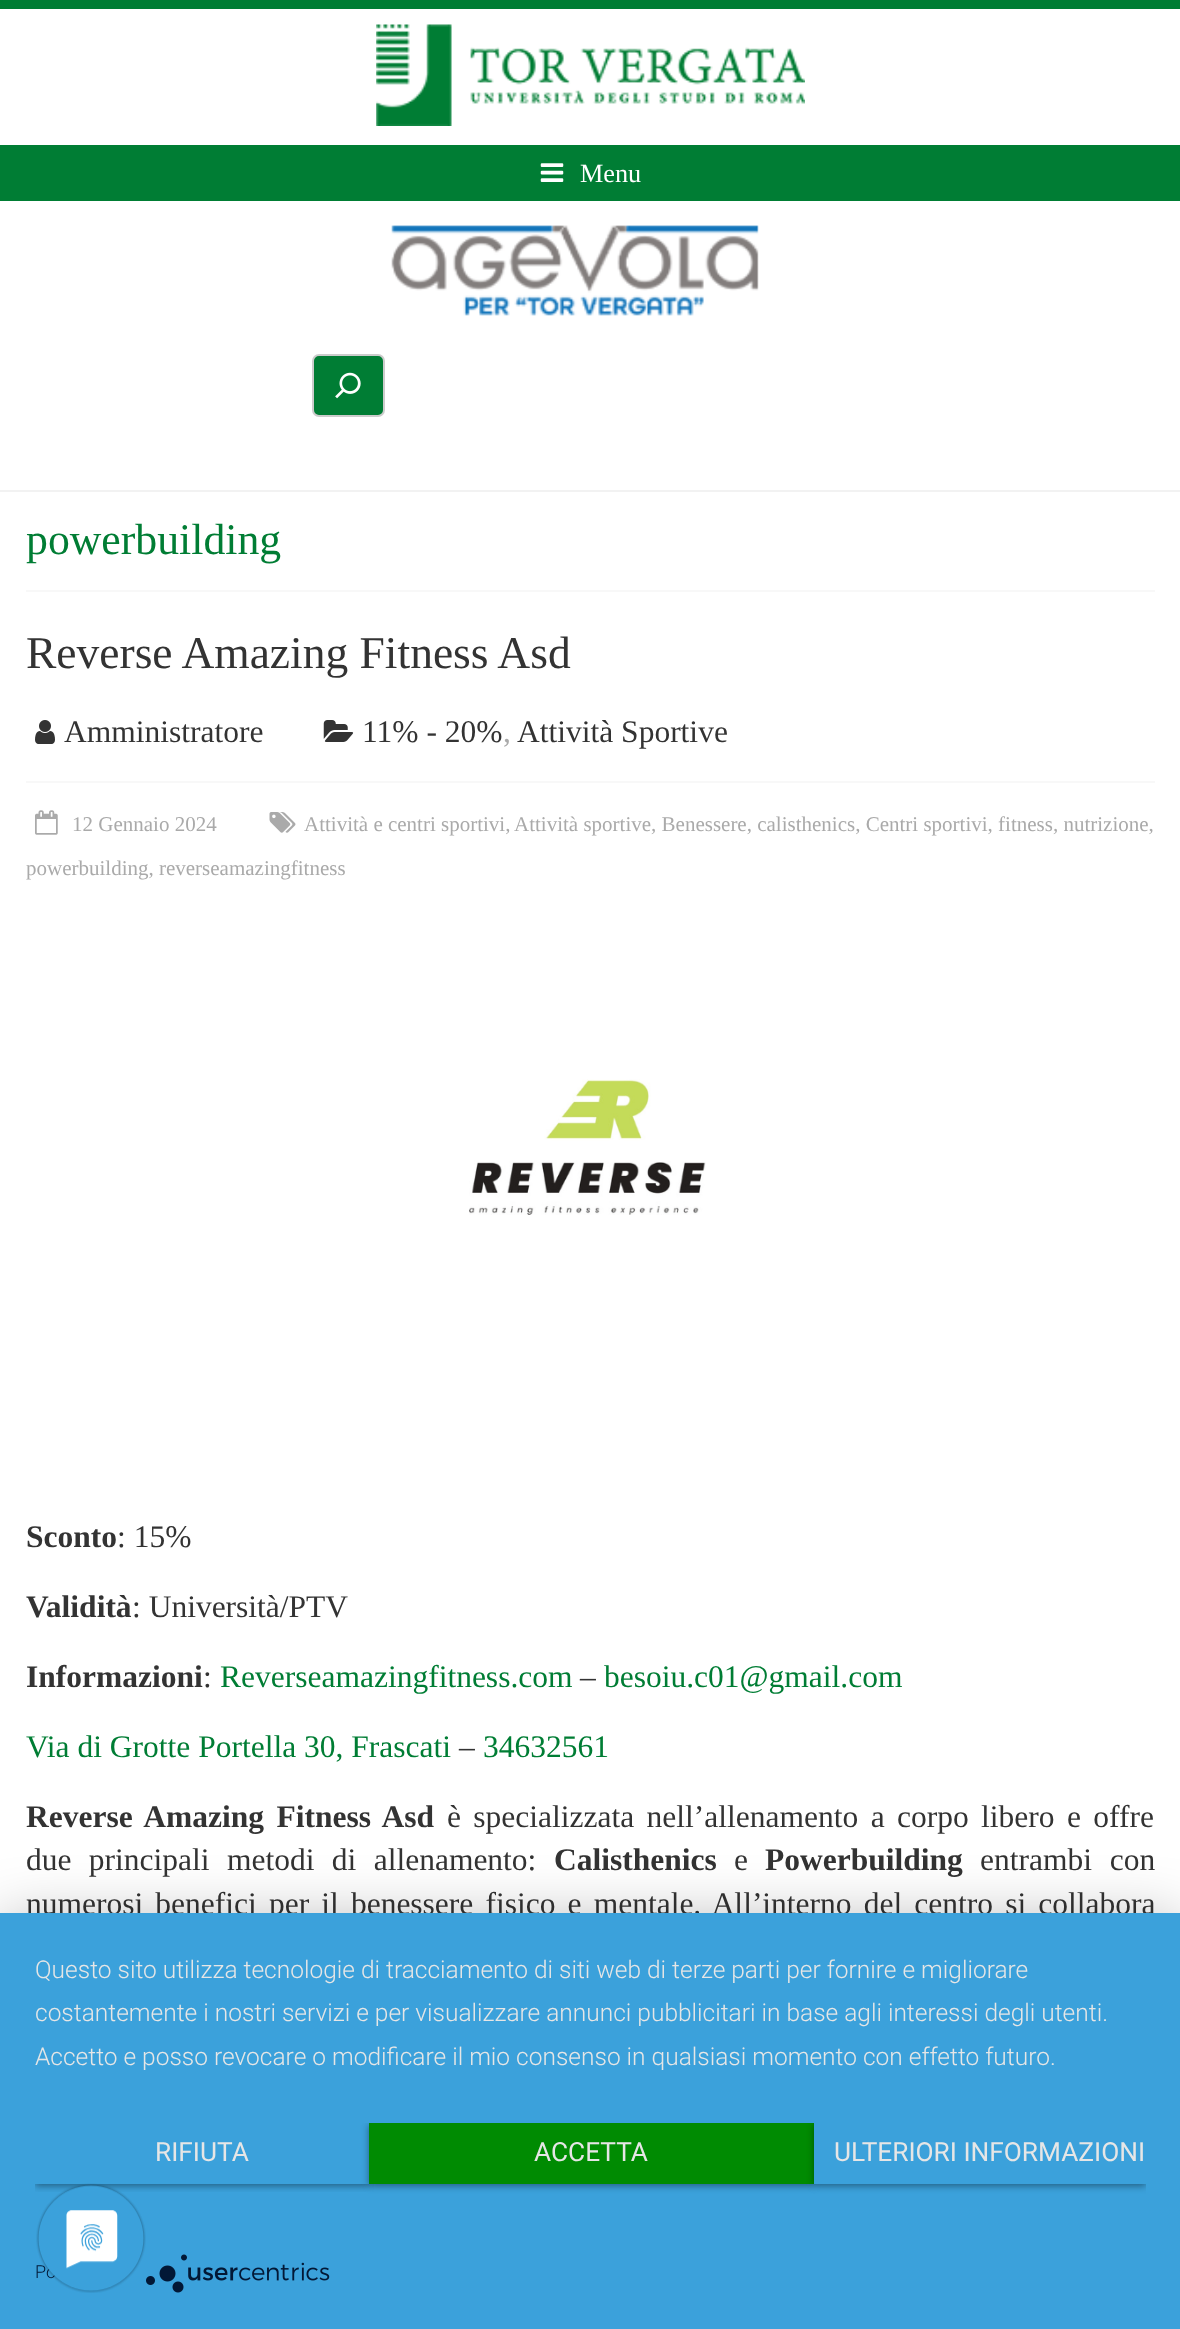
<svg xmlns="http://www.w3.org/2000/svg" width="1180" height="2329">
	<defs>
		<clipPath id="clip1"><rect x="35" y="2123" width="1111" height="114" /></clipPath>
		<clipPath id="clip2"><rect x="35" y="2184" width="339" height="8" /></clipPath>
	</defs>
	<rect width="100%" height="100%" fill="#F2F2F2" />
	<rect x="0" y="9" width="1180" height="481" fill="#FFFFFF" />
	<rect x="0" y="0" width="1180" height="9" fill="#007D34" />
	<image x="376" y="24" width="429" height="102" href="assets/img1.png" />
	<rect x="0" y="145" width="1180" height="56" fill="#007D34" />
	<image x="540" y="163" width="24" height="19" href="assets/img2.png" />
	<text x="580" y="182" font-family="Liberation Serif" font-size="26.25" fill="#FFFFFF">Menu</text>
	<image x="391" y="225" width="368" height="91" href="assets/img3.png" />
	<rect x="313" y="355" width="71" height="61" rx="6" fill="#007D34" stroke="#CCCCCC" stroke-width="2" />
	<image x="335" y="372" width="26" height="27" href="assets/img4.png" />
	<rect x="0" y="492" width="1180" height="1421" fill="#FFFFFF" />
	<rect x="26" y="590" width="1129" height="2" fill="#F8F8F8" />
	<text x="26" y="554" font-family="Liberation Serif" font-size="43.75" fill="#007D34">powerbuilding</text>
	<text x="26" y="668" font-family="Liberation Serif" font-size="45.5" fill="#333333">Reverse Amazing Fitness Asd</text>
	<image x="35" y="720" width="20" height="24" href="assets/img5.png" />
	<text x="64" y="742" font-family="Liberation Serif" font-size="31.5" fill="#333333">Amministratore</text>
	<image x="323" y="720" width="31" height="22" href="assets/img6.png" />
	<text x="362" y="742" font-family="Liberation Serif" font-size="31.5" fill="#333333">11% - 20%</text>
	<text x="503" y="742" font-family="Liberation Serif" font-size="31.5" fill="#AAAAAA">,</text>
	<text x="517" y="742" font-family="Liberation Serif" font-size="31.5" fill="#333333">Attività Sportive</text>
	<rect x="26" y="781" width="1129" height="2" fill="#F8F8F8" />
	<image x="269" y="812" width="27" height="21" href="assets/img7.png" />
	<g font-family="Liberation Serif" font-size="21" fill="#AAAAAA">
		<text x="304" y="831">Attività e centri sportivi,</text>
		<text x="514" y="831">Attività sportive, Benessere, calisthenics, Centri sportivi, fitness, nutrizione,</text>
		<text x="26" y="875">powerbuilding, reverseamazingfitness</text>
	</g>
	<image x="35" y="810" width="23" height="25" href="assets/img8.png" />
	<text x="72" y="831" font-family="Liberation Serif" font-size="21" fill="#AAAAAA">12 Gennaio 2024</text>
	<image x="469" y="1079" width="237" height="136" href="assets/img9.png" />
	<text x="26" y="1547" font-family="Liberation Serif" font-size="31.5" font-weight="700" fill="#333333">Sconto</text>
	<text x="117" y="1547" font-family="Liberation Serif" font-size="31.5" fill="#333333">: 15%</text>
	<text x="26" y="1617" font-family="Liberation Serif" font-size="31.5" font-weight="700" fill="#333333">Validità</text>
	<text x="132" y="1617" font-family="Liberation Serif" font-size="31.5" fill="#333333">: Università/PTV</text>
	<text x="26" y="1687" font-family="Liberation Serif" font-size="31.5" font-weight="700" fill="#333333">Informazioni</text>
	<text x="203" y="1687" font-family="Liberation Serif" font-size="31.5" fill="#333333">:</text>
	<text x="220" y="1687" font-family="Liberation Serif" font-size="31.5" fill="#007D34">Reverseamazingfitness.com</text>
	<text x="580" y="1687" font-family="Liberation Serif" font-size="31.5" fill="#333333">–</text>
	<g font-family="Liberation Serif" font-size="31.5" fill="#007D34">
		<text x="604" y="1687">besoiu.c01@gmail.com</text>
		<text x="26" y="1757">Via di Grotte Portella 30, Frascati</text>
	</g>
	<text x="459" y="1757" font-family="Liberation Serif" font-size="31.5" fill="#333333">–</text>
	<text x="483" y="1757" font-family="Liberation Serif" font-size="31.5" fill="#007D34">34632561</text>
	<text x="26" y="1827" word-spacing="4.5" font-family="Liberation Serif" font-size="31.5" font-weight="700" fill="#333333">Reverse Amazing Fitness Asd</text>
	<g font-family="Liberation Serif" font-size="31.5" fill="#333333">
		<text x="447" y="1827" word-spacing="4.5">è specializzata nell’allenamento a corpo libero e offre</text>
		<text x="26" y="1870" word-spacing="9.5">due principali metodi di allenamento:</text>
	</g>
	<text x="554" y="1870" font-family="Liberation Serif" font-size="31.5" font-weight="700" fill="#333333">Calisthenics</text>
	<text x="734" y="1870" font-family="Liberation Serif" font-size="31.5" fill="#333333">e</text>
	<text x="765" y="1870" font-family="Liberation Serif" font-size="31.5" font-weight="700" fill="#333333">Powerbuilding</text>
	<g font-family="Liberation Serif" font-size="31.5" fill="#333333">
		<text x="980" y="1870" word-spacing="10">entrambi con</text>
		<text x="26" y="1914" word-spacing="4.25">numerosi benefici per il benessere fisico e mentale. All’interno del centro si collabora</text>
	</g>
	<rect x="0" y="1923" width="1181" height="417" fill="#000000" fill-opacity="0.3" filter="blur(31.5px)" />
	<rect x="0" y="1913" width="1180" height="416" fill="#3BA1DB" />
	<g font-family="Roboto" font-size="24.5" font-weight="300" fill="#E6E6E6">
		<text x="35" y="1978">Questo sito utilizza tecnologie di tracciamento di siti web di terze parti per fornire e migliorare</text>
		<text x="35" y="2021">costantemente i nostri servizi e per visualizzare annunci pubblicitari in base agli interessi degli utenti.</text>
		<text x="35" y="2065">Accetto e posso revocare o modificare il mio consenso in qualsiasi momento con effetto futuro.</text>
	</g>
	<g clip-path="url(#clip1)">
		<g clip-path="url(#clip2)">
			<rect x="35" y="2125" width="334" height="61" fill="#000000" fill-opacity="0.4" filter="blur(3.5px)" />
		</g>
	</g>
	<text x="155" y="2161" font-family="Roboto" font-size="26.25" fill="#E6E6E6">RIFIUTA</text>
	<g clip-path="url(#clip1)">
		<rect x="369" y="2125" width="445" height="61" fill="#000000" fill-opacity="0.4" filter="blur(3.5px)" />
	</g>
	<rect x="369" y="2123" width="445" height="61" fill="#008B02" />
	<text x="534" y="2161" font-family="Roboto" font-size="26.25" fill="#E6E6E6">ACCETTA</text>
	<g clip-path="url(#clip1)">
		<rect x="814" y="2125" width="332" height="61" fill="#000000" fill-opacity="0.4" filter="blur(3.5px)" />
	</g>
	<rect x="814" y="2123" width="332" height="61" fill="#3BA1DB" />
	<text x="834" y="2161" font-family="Roboto" font-size="26.25" fill="#E6E6E6">ULTERIORI INFORMAZIONI</text>
	<text x="35" y="2278" font-family="Roboto" font-size="18" font-weight="300" fill="#021836">Po</text>
	<image x="146" y="2254" width="184" height="39" href="assets/img10.png" />
	<image x="36" y="2183" width="110" height="110" href="assets/img11.png" />
</svg>
